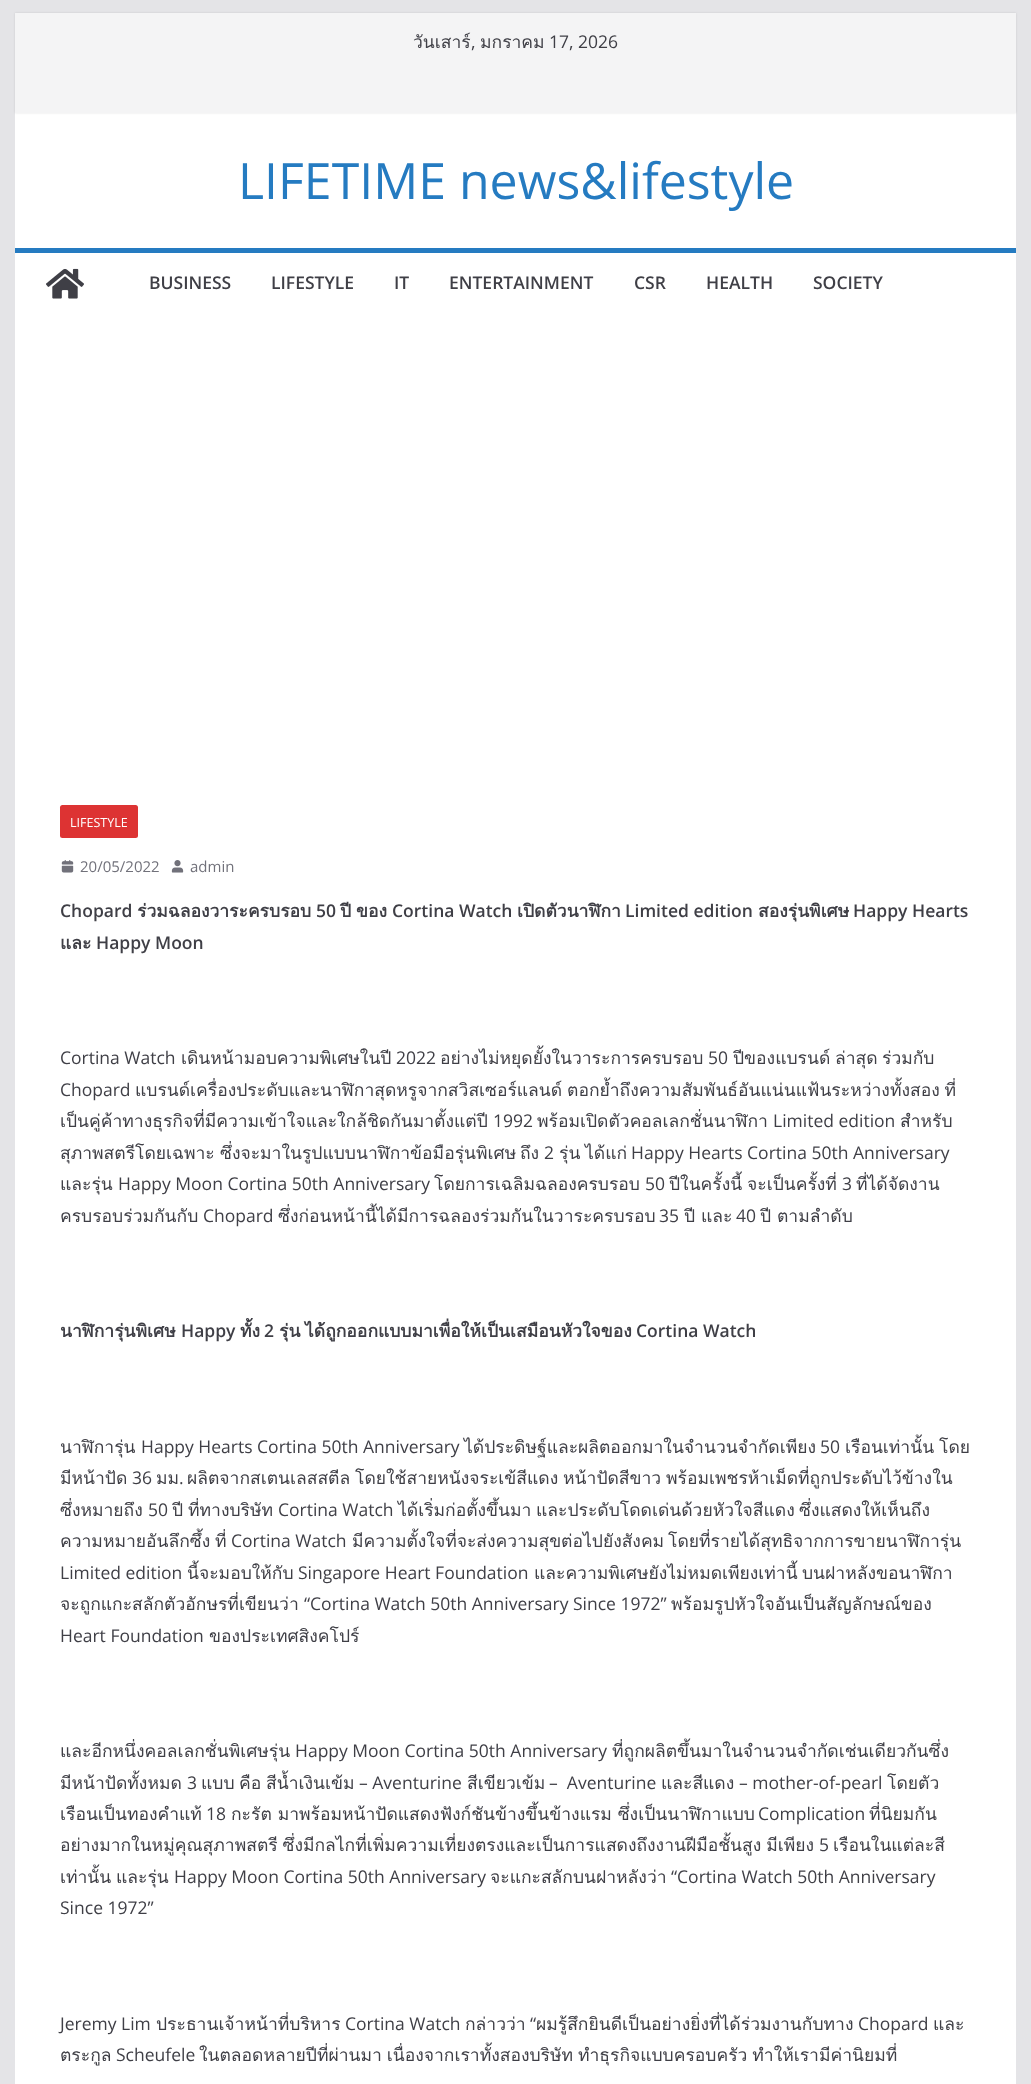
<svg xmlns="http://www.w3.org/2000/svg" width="1031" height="2084">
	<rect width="100%" height="100%" fill="#E4E4E7" />
	<rect x="15" y="113" width="1001" height="1971" fill="#FFFFFF" />
	<rect x="15" y="13" width="1001" height="100" fill="#000000" fill-opacity="0.1" filter="blur(1px)" />
	<rect x="15" y="13" width="1001" height="100" fill="#F4F4F5" />
	<text x="413" y="48" font-family="Loma" font-size="17.5" fill="#3F3F46">วันเสาร์</text>
	<text x="471" y="48" font-family="Open Sans" font-size="17.5" fill="#3F3F46">,</text>
	<text x="480" y="48" font-family="Loma" font-size="17.5" fill="#3F3F46">มกราคม</text>
	<text x="549" y="48" font-family="Open Sans" font-size="17.5" fill="#3F3F46">17, 2026</text>
	<text x="238" y="199" font-family="Open Sans" font-size="50" fill="#257BC1">LIFETIME news&amp;lifestyle</text>
	<rect x="15" y="248" width="1001" height="5" fill="#257BC1" />
	<image x="46" y="268" width="38" height="31" href="assets/img1.png" />
	<g font-family="Open Sans" font-size="17.5" font-weight="600" fill="#3F3F46">
		<text x="149" y="289">BUSINESS</text>
		<text x="271" y="289">LIFESTYLE</text>
		<text x="394" y="289">IT</text>
		<text x="449" y="289">ENTERTAINMENT</text>
		<text x="634" y="289">CSR</text>
		<text x="706" y="289">HEALTH</text>
		<text x="813" y="289">SOCIETY</text>
	</g>
	<rect x="60" y="805" width="78" height="33" rx="2.5" fill="#DD3333" />
	<text x="70" y="827" font-family="Open Sans" font-size="12.5" fill="#FFFFFF">LIFESTYLE</text>
	<image x="61" y="860" width="13" height="13" href="assets/img2.png" />
	<text x="80" y="872" font-family="Open Sans" font-size="15" fill="#71717A">20/05/2022</text>
	<image x="171" y="860" width="13" height="13" href="assets/img3.png" />
	<text x="190" y="872" font-family="Open Sans" font-size="15" fill="#71717A">admin</text>
	<text x="60" y="917" font-family="Open Sans" font-size="17.5" font-weight="600" fill="#3F3F46">Chopard</text>
	<text x="137" y="917" font-family="Loma" font-size="17.5" font-weight="700" fill="#3F3F46">ร่วมฉลองวาระครบรอบ</text>
	<text x="316" y="917" font-family="Open Sans" font-size="17.5" font-weight="600" fill="#3F3F46">50</text>
	<text x="340" y="917" word-spacing="-1" font-family="Loma" font-size="17.5" font-weight="700" fill="#3F3F46">ปี ของ</text>
	<text x="392" y="917" font-family="Open Sans" font-size="17.5" font-weight="600" fill="#3F3F46">Cortina Watch</text>
	<text x="517" y="917" font-family="Loma" font-size="17.5" font-weight="700" fill="#3F3F46">เปิดตัวนาฬิกา</text>
	<text x="625" y="917" font-family="Open Sans" font-size="17.5" font-weight="600" fill="#3F3F46">Limited edition</text>
	<text x="758" y="917" font-family="Loma" font-size="17.5" font-weight="700" fill="#3F3F46">สองรุ่นพิเศษ</text>
	<text x="853" y="917" font-family="Open Sans" font-size="17.5" font-weight="600" fill="#3F3F46">Happy Hearts</text>
	<text x="60" y="949" font-family="Loma" font-size="17.5" font-weight="700" fill="#3F3F46">และ</text>
	<text x="96" y="949" font-family="Open Sans" font-size="17.5" font-weight="600" fill="#3F3F46">Happy Moon</text>
	<text x="60" y="1064" font-family="Open Sans" font-size="17.5" fill="#3F3F46">Cortina Watch</text>
	<text x="181" y="1064" font-family="Loma" font-size="17.5" fill="#3F3F46">เดินหน้ามอบความพิเศษในปี</text>
	<text x="396" y="1064" font-family="Open Sans" font-size="17.5" fill="#3F3F46">2022</text>
	<text x="440" y="1064" font-family="Loma" font-size="17.5" fill="#3F3F46">อย่างไม่หยุดยั้งในวาระการครบรอบ</text>
	<text x="708" y="1064" font-family="Open Sans" font-size="17.5" fill="#3F3F46">50</text>
	<g font-family="Loma" font-size="17.5" fill="#3F3F46">
		<text x="733" y="1064">ปีของแบรนด์</text>
		<text x="835" y="1064">ล่าสุด</text>
		<text x="882" y="1064">ร่วมกับ</text>
	</g>
	<text x="60" y="1096" font-family="Open Sans" font-size="17.5" fill="#3F3F46">Chopard</text>
	<g font-family="Loma" font-size="17.5" fill="#3F3F46">
		<text x="135" y="1096" word-spacing="-1">แบรนด์เครื่องประดับและนาฬิกาสุดหรูจากสวิสเซอร์แลนด์ ตอกย้ำถึงความสัมพันธ์อันแน่นแฟ้นระหว่างทั้งสอง ที่</text>
		<text x="60" y="1127">เป็นคู่ค้าทางธุรกิจที่มีความเข้าใจและใกล้ชิดกันมาตั้งแต่ปี</text>
	</g>
	<text x="493" y="1127" font-family="Open Sans" font-size="17.5" fill="#3F3F46">1992</text>
	<text x="537" y="1127" font-family="Loma" font-size="17.5" fill="#3F3F46">พร้อมเปิดตัวคอลเลกชั่นนาฬิกา</text>
	<text x="773" y="1127" font-family="Open Sans" font-size="17.5" fill="#3F3F46">Limited edition</text>
	<g font-family="Loma" font-size="17.5" fill="#3F3F46">
		<text x="900" y="1127">สำหรับ</text>
		<text x="60" y="1159">สุภาพสตรีโดยเฉพาะ</text>
		<text x="220" y="1159">ซึ่งจะมาในรูปแบบนาฬิกาข้อมือรุ่นพิเศษ</text>
		<text x="520" y="1159">ถึง</text>
	</g>
	<text x="544" y="1159" font-family="Open Sans" font-size="17.5" fill="#3F3F46">2</text>
	<g font-family="Loma" font-size="17.5" fill="#3F3F46">
		<text x="559" y="1159">รุ่น</text>
		<text x="585" y="1159">ได้แก่</text>
	</g>
	<text x="631" y="1159" font-family="Open Sans" font-size="17.5" fill="#3F3F46">Happy Hearts Cortina 50th Anniversary</text>
	<text x="60" y="1190" font-family="Loma" font-size="17.5" fill="#3F3F46">และรุ่น</text>
	<text x="118" y="1190" font-family="Open Sans" font-size="17.5" fill="#3F3F46">Happy Moon Cortina 50th Anniversary</text>
	<text x="434" y="1190" font-family="Loma" font-size="17.5" fill="#3F3F46">โดยการเฉลิมฉลองครบรอบ</text>
	<text x="645" y="1190" font-family="Open Sans" font-size="17.5" fill="#3F3F46">50</text>
	<g font-family="Loma" font-size="17.5" fill="#3F3F46">
		<text x="669" y="1190">ปีในครั้งนี้</text>
		<text x="747" y="1190">จะเป็นครั้งที่</text>
	</g>
	<text x="842" y="1190" font-family="Open Sans" font-size="17.5" fill="#3F3F46">3</text>
	<g font-family="Loma" font-size="17.5" fill="#3F3F46">
		<text x="856" y="1190">ที่ได้จัดงาน</text>
		<text x="60" y="1222">ครบรอบร่วมกันกับ</text>
	</g>
	<text x="203" y="1222" font-family="Open Sans" font-size="17.5" fill="#3F3F46">Chopard</text>
	<text x="278" y="1222" font-family="Loma" font-size="17.5" fill="#3F3F46">ซึ่งก่อนหน้านี้ได้มีการฉลองร่วมกันในวาระครบรอบ</text>
	<text x="659" y="1222" font-family="Open Sans" font-size="17.5" fill="#3F3F46">35</text>
	<text x="684" y="1222" font-family="Loma" font-size="17.5" fill="#3F3F46">ปี และ</text>
	<text x="736" y="1222" font-family="Open Sans" font-size="17.5" fill="#3F3F46">40</text>
	<text x="760" y="1222" font-family="Loma" font-size="17.5" fill="#3F3F46">ปี ตามลำดับ</text>
	<text x="60" y="1337" font-family="Loma" font-size="17.5" font-weight="700" fill="#3F3F46">นาฬิการุ่นพิเศษ</text>
	<text x="181" y="1337" font-family="Open Sans" font-size="17.5" font-weight="600" fill="#3F3F46">Happy</text>
	<text x="240" y="1337" font-family="Loma" font-size="17.5" font-weight="700" fill="#3F3F46">ทั้ง</text>
	<text x="264" y="1337" font-family="Open Sans" font-size="17.5" font-weight="600" fill="#3F3F46">2</text>
	<g font-family="Loma" font-size="17.5" font-weight="700" fill="#3F3F46">
		<text x="279" y="1337">รุ่น</text>
		<text x="305" y="1337">ได้ถูกออกแบบมาเพื่อให้เป็นเสมือนหัวใจของ</text>
	</g>
	<text x="636" y="1337" font-family="Open Sans" font-size="17.5" font-weight="600" fill="#3F3F46">Cortina Watch</text>
	<text x="60" y="1453" font-family="Loma" font-size="17.5" fill="#3F3F46">นาฬิการุ่น</text>
	<text x="141" y="1453" font-family="Open Sans" font-size="17.5" fill="#3F3F46">Happy Hearts Cortina 50th Anniversary</text>
	<text x="464" y="1453" font-family="Loma" font-size="17.5" fill="#3F3F46">ได้ประดิษฐ์และผลิตออกมาในจำนวนจำกัดเพียง</text>
	<text x="820" y="1453" font-family="Open Sans" font-size="17.5" fill="#3F3F46">50</text>
	<g font-family="Loma" font-size="17.5" fill="#3F3F46">
		<text x="845" y="1453">เรือนเท่านั้น</text>
		<text x="939" y="1453">โดย</text>
		<text x="60" y="1484">มีหน้าปัด</text>
	</g>
	<text x="132" y="1484" font-family="Open Sans" font-size="17.5" fill="#3F3F46">36</text>
	<text x="156" y="1484" font-family="Loma" font-size="17.5" fill="#3F3F46">มม</text>
	<text x="179" y="1484" font-family="Open Sans" font-size="17.5" fill="#3F3F46">.</text>
	<g font-family="Loma" font-size="17.5" fill="#3F3F46">
		<text x="187" y="1484" word-spacing="-1">ผลิตจากสเตนเลสสตีล โดยใช้สายหนังจระเข้สีแดง หน้าปัดสีขาว พร้อมเพชรห้าเม็ดที่ถูกประดับไว้ข้างใน</text>
		<text x="60" y="1516">ซึ่งหมายถึง</text>
	</g>
	<text x="148" y="1516" font-family="Open Sans" font-size="17.5" fill="#3F3F46">50</text>
	<g font-family="Loma" font-size="17.5" fill="#3F3F46">
		<text x="172" y="1516">ปี</text>
		<text x="188" y="1516">ที่ทางบริษัท</text>
	</g>
	<text x="278" y="1516" font-family="Open Sans" font-size="17.5" fill="#3F3F46">Cortina Watch</text>
	<g font-family="Loma" font-size="17.5" fill="#3F3F46">
		<text x="398" y="1516">ได้เริ่มก่อตั้งขึ้นมา</text>
		<text x="536" y="1516">และประดับโดดเด่นด้วยหัวใจสีแดง</text>
		<text x="799" y="1516">ซึ่งแสดงให้เห็นถึง</text>
		<text x="60" y="1547">ความหมายอันลึกซึ้ง</text>
		<text x="215" y="1547">ที่</text>
	</g>
	<text x="231" y="1547" font-family="Open Sans" font-size="17.5" fill="#3F3F46">Cortina Watch</text>
	<g font-family="Loma" font-size="17.5" fill="#3F3F46">
		<text x="352" y="1547">มีความตั้งใจที่จะส่งความสุขต่อไปยังสังคม</text>
		<text x="668" y="1547">โดยที่รายได้สุทธิจากการขายนาฬิการุ่น</text>
	</g>
	<text x="60" y="1579" font-family="Open Sans" font-size="17.5" fill="#3F3F46">Limited edition</text>
	<text x="187" y="1579" font-family="Loma" font-size="17.5" fill="#3F3F46">นี้จะมอบให้กับ</text>
	<text x="298" y="1579" font-family="Open Sans" font-size="17.5" fill="#3F3F46">Singapore Heart Foundation</text>
	<g font-family="Loma" font-size="17.5" fill="#3F3F46">
		<text x="534" y="1579">และความพิเศษยังไม่หมดเพียงเท่านี้</text>
		<text x="802" y="1579">บนฝาหลังขอนาฬิกา</text>
		<text x="60" y="1610">จะถูกแกะสลักตัวอักษรที่เขียนว่า</text>
	</g>
	<text x="304" y="1610" font-family="Open Sans" font-size="17.5" fill="#3F3F46">“Cortina Watch 50th Anniversary Since 1972”</text>
	<text x="671" y="1610" font-family="Loma" font-size="17.5" fill="#3F3F46">พร้อมรูปหัวใจอันเป็นสัญลักษณ์ของ</text>
	<text x="60" y="1642" font-family="Open Sans" font-size="17.5" fill="#3F3F46">Heart Foundation</text>
	<g font-family="Loma" font-size="17.5" fill="#3F3F46">
		<text x="209" y="1642">ของประเทศสิงคโปร์</text>
		<text x="60" y="1757">และอีกหนึ่งคอลเลกชั่นพิเศษรุ่น</text>
	</g>
	<text x="295" y="1757" font-family="Open Sans" font-size="17.5" fill="#3F3F46">Happy Moon Cortina 50th Anniversary</text>
	<g font-family="Loma" font-size="17.5" fill="#3F3F46">
		<text x="612" y="1757">ที่ถูกผลิตขึ้นมาในจำนวนจำกัดเช่นเดียวกันซึ่ง</text>
		<text x="60" y="1789">มีหน้าปัดทั้งหมด</text>
	</g>
	<text x="187" y="1789" font-family="Open Sans" font-size="17.5" fill="#3F3F46">3</text>
	<g font-family="Loma" font-size="17.5" fill="#3F3F46">
		<text x="201" y="1789">แบบ</text>
		<text x="239" y="1789">คือ</text>
		<text x="266" y="1789">สีน้ำเงินเข้ม</text>
	</g>
	<text x="359" y="1789" font-family="Open Sans" font-size="17.5" fill="#3F3F46">– Aventurine</text>
	<text x="467" y="1789" font-family="Loma" font-size="17.5" fill="#3F3F46">สีเขียวเข้ม</text>
	<text x="549" y="1789" font-family="Open Sans" font-size="17.5" fill="#3F3F46" xml:space="preserve">–  Aventurine</text>
	<text x="661" y="1789" font-family="Loma" font-size="17.5" fill="#3F3F46">และสีแดง</text>
	<text x="739" y="1789" font-family="Open Sans" font-size="17.5" fill="#3F3F46">– mother-of-pearl</text>
	<g font-family="Loma" font-size="17.5" fill="#3F3F46">
		<text x="887" y="1789">โดยตัว</text>
		<text x="60" y="1820">เรือนเป็นทองคำแท้</text>
	</g>
	<text x="206" y="1820" font-family="Open Sans" font-size="17.5" fill="#3F3F46">18</text>
	<text x="231" y="1820" font-family="Loma" font-size="17.5" fill="#3F3F46">กะรัต มาพร้อมหน้าปัดแสดงฟังก์ชันข้างขึ้นข้างแรม ซึ่งเป็นนาฬิกาแบบ</text>
	<text x="758" y="1820" font-family="Open Sans" font-size="17.5" fill="#3F3F46">Complication</text>
	<g font-family="Loma" font-size="17.5" fill="#3F3F46">
		<text x="869" y="1820">ที่นิยมกัน</text>
		<text x="60" y="1851" word-spacing="-1">อย่างมากในหมู่คุณสุภาพสตรี ซึ่งมีกลไกที่เพิ่มความเที่ยงตรงและเป็นการแสดงถึงงานฝีมือชั้นสูง มีเพียง</text>
	</g>
	<text x="819" y="1851" font-family="Open Sans" font-size="17.5" fill="#3F3F46">5</text>
	<g font-family="Loma" font-size="17.5" fill="#3F3F46">
		<text x="833" y="1851">เรือนในแต่ละสี</text>
		<text x="60" y="1883">เท่านั้น</text>
		<text x="116" y="1883">และรุ่น</text>
	</g>
	<text x="174" y="1883" font-family="Open Sans" font-size="17.5" fill="#3F3F46">Happy Moon Cortina 50th Anniversary</text>
	<text x="490" y="1883" font-family="Loma" font-size="17.5" fill="#3F3F46">จะแกะสลักบนฝาหลังว่า</text>
	<g font-family="Open Sans" font-size="17.5" fill="#3F3F46">
		<text x="671" y="1883">“Cortina Watch 50th Anniversary</text>
		<text x="60" y="1914">Since 1972”</text>
		<text x="60" y="2030">Jeremy Lim</text>
	</g>
	<text x="156" y="2030" font-family="Loma" font-size="17.5" fill="#3F3F46">ประธานเจ้าหน้าที่บริหาร</text>
	<text x="345" y="2030" font-family="Open Sans" font-size="17.5" fill="#3F3F46">Cortina Watch</text>
	<text x="465" y="2030" font-family="Loma" font-size="17.5" fill="#3F3F46">กล่าวว่า</text>
	<text x="530" y="2030" font-family="Open Sans" font-size="17.5" fill="#3F3F46">“</text>
	<text x="536" y="2030" font-family="Loma" font-size="17.5" fill="#3F3F46">ผมรู้สึกยินดีเป็นอย่างยิ่งที่ได้ร่วมงานกับทาง</text>
	<text x="858" y="2030" font-family="Open Sans" font-size="17.5" fill="#3F3F46">Chopard</text>
	<g font-family="Loma" font-size="17.5" fill="#3F3F46">
		<text x="933" y="2030">และ</text>
		<text x="60" y="2061">ตระกูล</text>
	</g>
	<text x="116" y="2061" font-family="Open Sans" font-size="17.5" fill="#3F3F46">Scheufele</text>
	<text x="199" y="2061" word-spacing="-1" font-family="Loma" font-size="17.5" fill="#3F3F46">ในตลอดหลายปีที่ผ่านมา เนื่องจากเราทั้งสองบริษัท ทำธุรกิจแบบครอบครัว ทำให้เรามีค่านิยมที่</text>
</svg>
